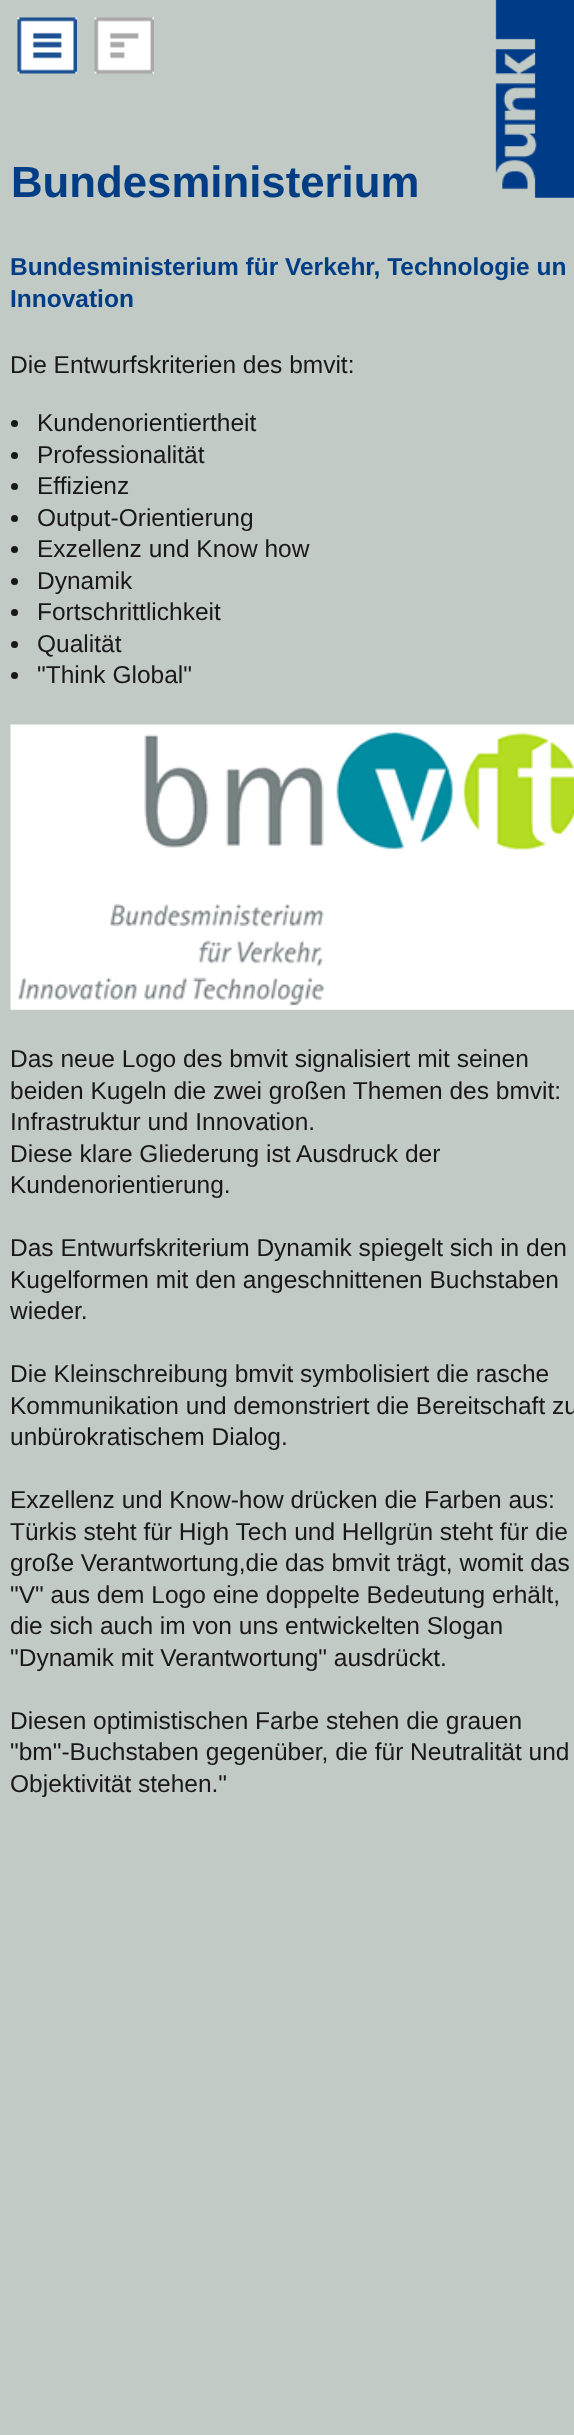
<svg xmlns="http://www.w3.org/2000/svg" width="574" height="2435">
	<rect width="100%" height="100%" fill="#C1CAC5" />
	<image x="17" y="17" width="60" height="57" href="assets/img1.png" />
	<image x="94" y="17" width="60" height="57" href="assets/img2.png" />
	<image x="495" y="0" width="79" height="198" href="assets/img3.png" />
	<text x="11" y="197" font-family="Liberation Sans" font-size="43.75" font-weight="700" fill="#003D85">Bundesministerium</text>
	<g font-family="Liberation Sans" font-size="24.5" font-weight="700" fill="#003D85">
		<text x="10" y="275">Bundesministerium für Verkehr, Technologie un</text>
		<text x="10" y="307">Innovation</text>
	</g>
	<text x="10" y="373" font-family="Liberation Sans" font-size="24.5" fill="#1A171B">Die Entwurfskriterien des bmvit:</text>
	<circle cx="14.5" cy="423.5" r="3.5" fill="#1A171B" />
	<text x="37" y="431" font-family="Liberation Sans" font-size="24.5" fill="#1A171B">Kundenorientiertheit</text>
	<circle cx="14.5" cy="455.5" r="3.5" fill="#1A171B" />
	<text x="37" y="463" font-family="Liberation Sans" font-size="24.5" fill="#1A171B">Professionalität</text>
	<circle cx="14.5" cy="486.5" r="3.5" fill="#1A171B" />
	<text x="37" y="494" font-family="Liberation Sans" font-size="24.5" fill="#1A171B">Effizienz</text>
	<circle cx="14.5" cy="518.5" r="3.5" fill="#1A171B" />
	<text x="37" y="526" font-family="Liberation Sans" font-size="24.5" fill="#1A171B">Output-Orientierung</text>
	<circle cx="14.5" cy="549.5" r="3.5" fill="#1A171B" />
	<text x="37" y="557" font-family="Liberation Sans" font-size="24.5" fill="#1A171B">Exzellenz und Know how</text>
	<circle cx="14.5" cy="581.5" r="3.5" fill="#1A171B" />
	<text x="37" y="589" font-family="Liberation Sans" font-size="24.5" fill="#1A171B">Dynamik</text>
	<circle cx="14.5" cy="612.5" r="3.5" fill="#1A171B" />
	<text x="37" y="620" font-family="Liberation Sans" font-size="24.5" fill="#1A171B">Fortschrittlichkeit</text>
	<circle cx="14.5" cy="644.5" r="3.5" fill="#1A171B" />
	<text x="37" y="652" font-family="Liberation Sans" font-size="24.5" fill="#1A171B">Qualität</text>
	<circle cx="14.5" cy="675.5" r="3.5" fill="#1A171B" />
	<text x="37" y="683" font-family="Liberation Sans" font-size="24.5" fill="#1A171B">"Think Global"</text>
	<image x="10" y="724" width="564" height="286" href="assets/img4.png" />
	<g font-family="Liberation Sans" font-size="24.5" fill="#1A171B">
		<text x="10" y="1067">Das neue Logo des bmvit signalisiert mit seinen</text>
		<text x="10" y="1099">beiden Kugeln die zwei großen Themen des bmvit:</text>
		<text x="10" y="1130">Infrastruktur und Innovation.</text>
		<text x="10" y="1162">Diese klare Gliederung ist Ausdruck der</text>
		<text x="10" y="1193">Kundenorientierung.</text>
		<text x="10" y="1256">Das Entwurfskriterium Dynamik spiegelt sich in den</text>
		<text x="10" y="1288">Kugelformen mit den angeschnittenen Buchstaben</text>
		<text x="10" y="1319">wieder.</text>
		<text x="10" y="1382">Die Kleinschreibung bmvit symbolisiert die rasche</text>
		<text x="10" y="1414">Kommunikation und demonstriert die Bereitschaft zu</text>
		<text x="10" y="1445">unbürokratischem Dialog.</text>
		<text x="10" y="1508">Exzellenz und Know-how drücken die Farben aus:</text>
		<text x="10" y="1540">Türkis steht für High Tech und Hellgrün steht für die</text>
		<text x="10" y="1571">große Verantwortung,die das bmvit trägt, womit das</text>
		<text x="10" y="1603">"V" aus dem Logo eine doppelte Bedeutung erhält,</text>
		<text x="10" y="1634">die sich auch im von uns entwickelten Slogan</text>
		<text x="10" y="1666">"Dynamik mit Verantwortung" ausdrückt.</text>
		<text x="10" y="1729">Diesen optimistischen Farbe stehen die grauen</text>
		<text x="10" y="1760">"bm"-Buchstaben gegenüber, die für Neutralität und</text>
		<text x="10" y="1792">Objektivität stehen."</text>
	</g>
</svg>
